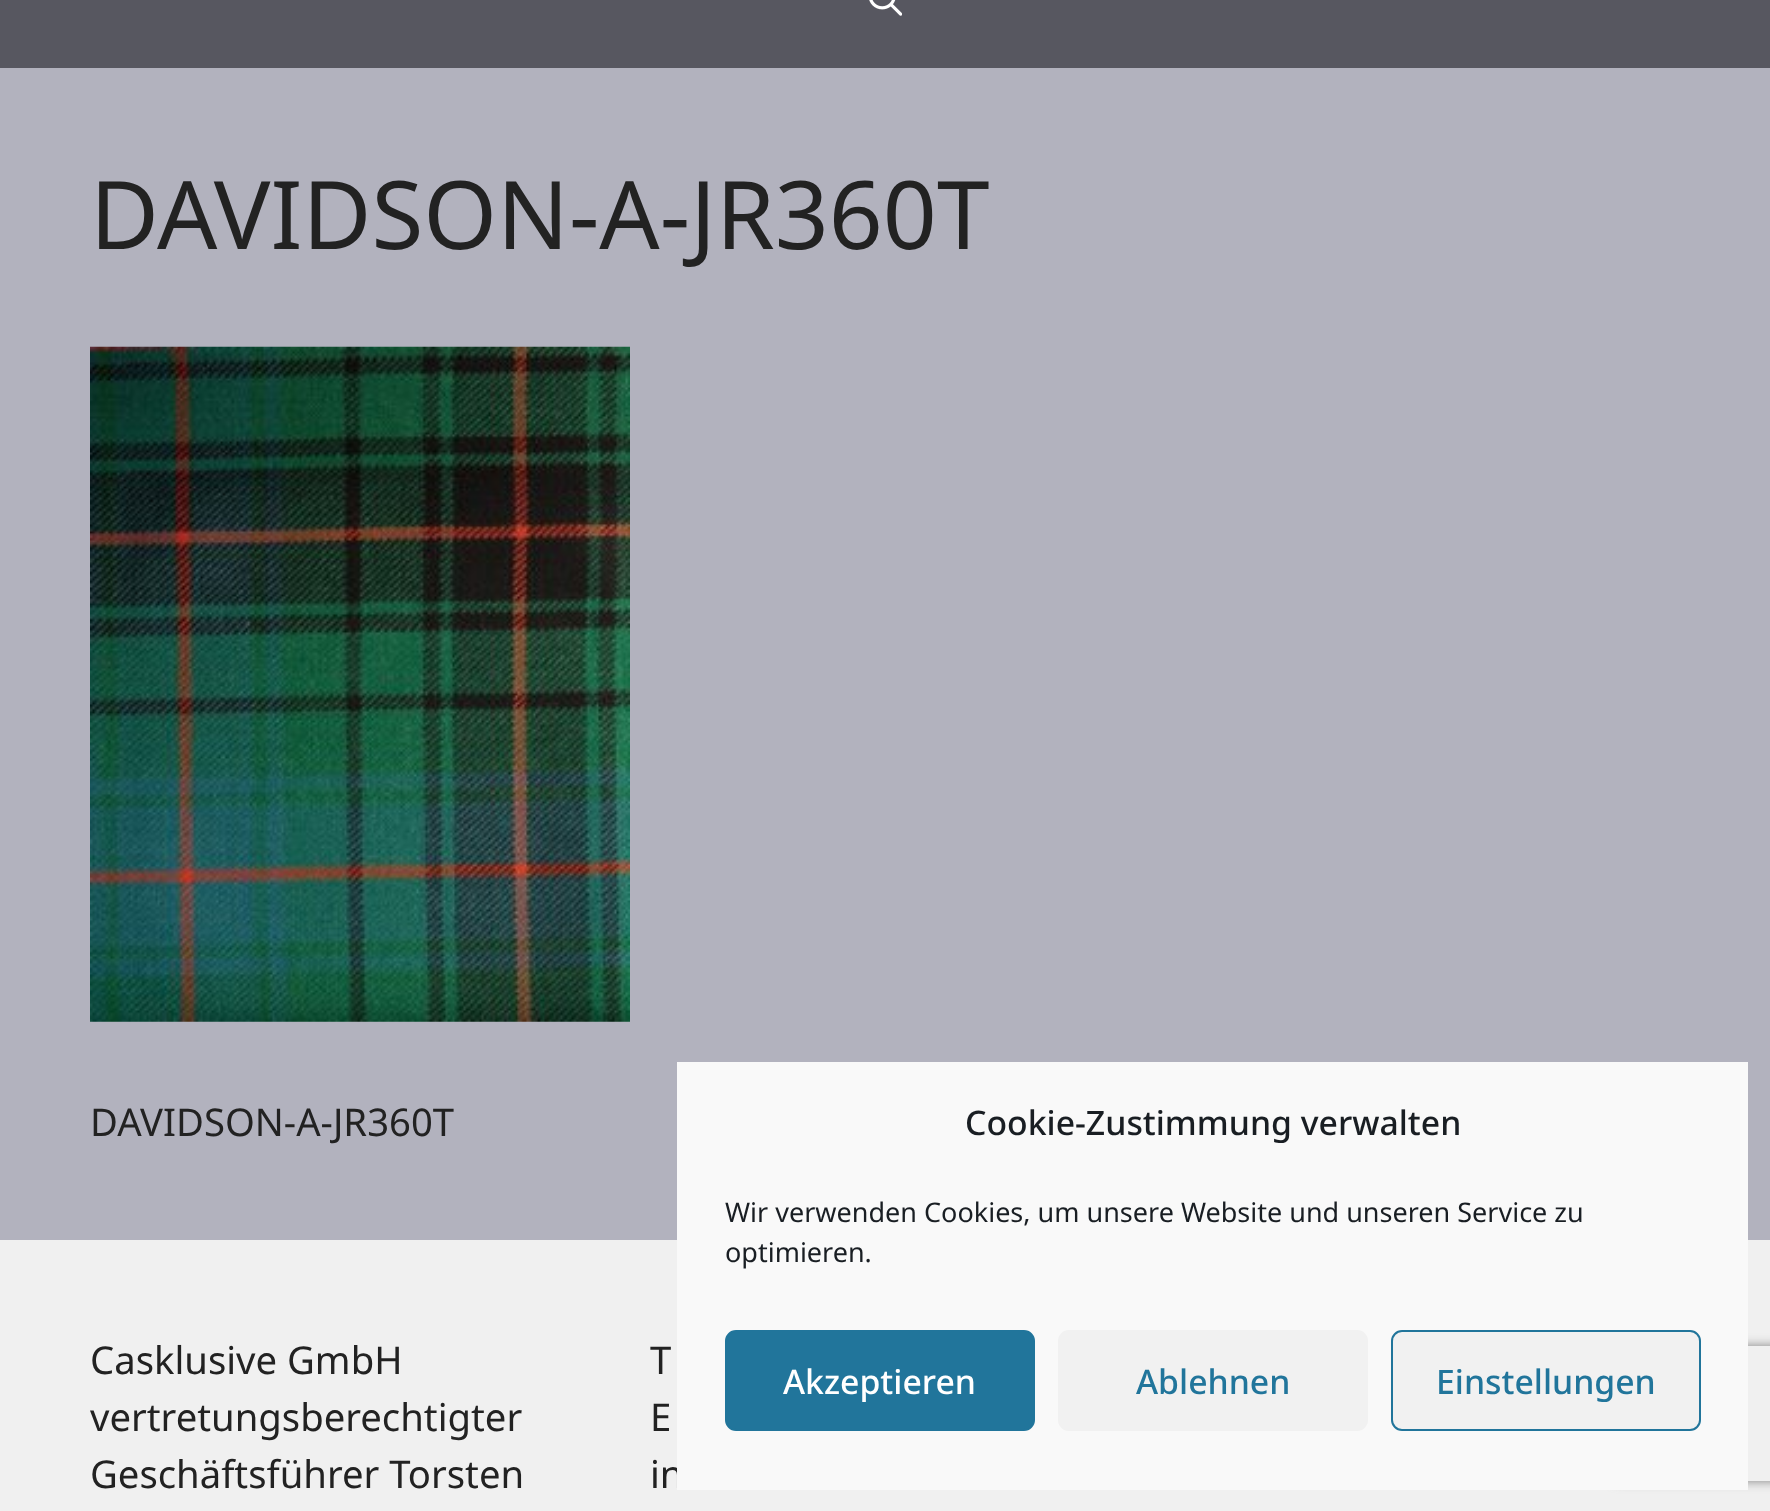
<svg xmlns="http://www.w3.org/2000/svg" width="1770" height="1511">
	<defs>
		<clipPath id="clip1"><path d="M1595 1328H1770V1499H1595ZM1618 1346H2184C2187 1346 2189 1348 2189 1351V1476C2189 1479 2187 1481 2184 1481H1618C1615 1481 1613 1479 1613 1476V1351C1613 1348 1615 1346 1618 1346Z" clip-rule="evenodd" /></clipPath>
	</defs>
	<rect width="100%" height="100%" fill="#575760" />
	<image x="869" y="0" width="33" height="16" href="assets/img1.png" />
	<rect x="0" y="68" width="1770" height="1172" fill="#B2B2BE" />
	<text x="90" y="249" font-family="Noto Sans" font-size="94.5" fill="#222222">DAVIDSON-A-JR360T</text>
	<image x="90" y="346" width="540" height="676" href="assets/img2.png" />
	<text x="90" y="1136" font-family="Noto Sans" font-size="38.25" fill="#222222">DAVIDSON-A-JR360T</text>
	<rect x="0" y="1240" width="1770" height="271" fill="#F0F0F0" />
	<g font-family="Noto Sans" font-size="38.25" fill="#222222">
		<text x="90" y="1374">Casklusive GmbH</text>
		<text x="90" y="1431">vertretungsberechtigter</text>
		<text x="90" y="1488">Geschäftsführer Torsten</text>
		<text x="650" y="1374">T</text>
		<text x="650" y="1431">E</text>
		<text x="650" y="1488">in</text>
	</g>
	<g clip-path="url(#clip1)">
		<rect x="1613" y="1346" width="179" height="135" rx="5" fill="#808080" filter="blur(5.5px)" />
	</g>
	<rect x="677" y="1062" width="1071" height="428" fill="#F9F9F9" />
	<text x="965" y="1135" font-family="Noto Sans" font-size="33.75" font-weight="500" fill="#191E23">Cookie-Zustimmung verwalten</text>
	<g font-family="Noto Sans" font-size="27" fill="#191E23">
		<text x="725" y="1222">Wir verwenden Cookies, um unsere Website und unseren Service zu</text>
		<text x="725" y="1262">optimieren.</text>
	</g>
	<rect x="726" y="1331" width="308" height="99" rx="10" fill="#21759B" stroke="#21759B" stroke-width="2" />
	<text x="783" y="1394" font-family="Noto Sans" font-size="33.75" font-weight="500" fill="#FFFFFF">Akzeptieren</text>
	<rect x="1058" y="1330" width="310" height="101" rx="11" fill="#F1F1F1" />
	<text x="1136" y="1394" font-family="Noto Sans" font-size="33.75" font-weight="500" fill="#21759B">Ablehnen</text>
	<rect x="1392" y="1331" width="308" height="99" rx="10" fill="#F1F1F1" stroke="#21759B" stroke-width="2" />
	<text x="1436" y="1394" font-family="Noto Sans" font-size="33.75" font-weight="500" fill="#21759B">Einstellungen</text>
</svg>
